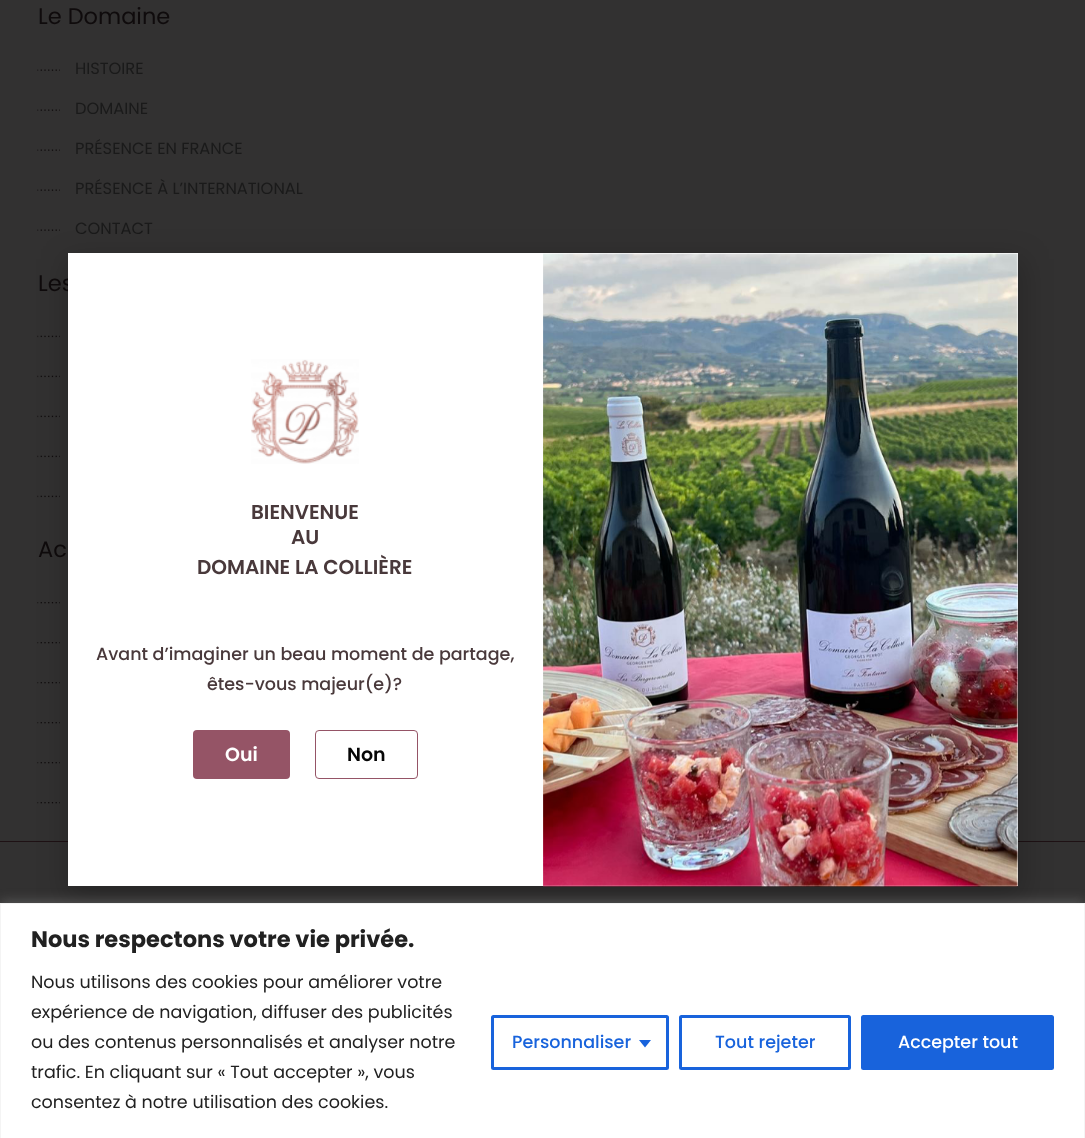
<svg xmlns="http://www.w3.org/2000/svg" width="1085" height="1138">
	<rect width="100%" height="100%" fill="#323131" />
	<text x="38" y="24" font-family="Poppins" font-size="22.5" fill="#0F0B0C">Le Domaine</text>
	<image x="37" y="69" width="23" height="2" href="assets/img1.png" />
	<text x="75" y="74" font-family="Poppins" font-size="16.25" fill="#1A1A1A">HISTOIRE</text>
	<image x="37" y="109" width="23" height="2" href="assets/img1.png" />
	<text x="75" y="114" font-family="Poppins" font-size="16.25" fill="#1A1A1A">DOMAINE</text>
	<image x="37" y="149" width="23" height="2" href="assets/img1.png" />
	<text x="75" y="154" font-family="Poppins" font-size="16.25" fill="#1A1A1A">PRÉSENCE EN FRANCE</text>
	<image x="37" y="189" width="23" height="2" href="assets/img1.png" />
	<text x="75" y="194" font-family="Poppins" font-size="16.25" fill="#1A1A1A">PRÉSENCE À L’INTERNATIONAL</text>
	<image x="37" y="229" width="23" height="2" href="assets/img1.png" />
	<text x="75" y="234" font-family="Poppins" font-size="16.25" fill="#1A1A1A">CONTACT</text>
	<text x="38" y="291" font-family="Poppins" font-size="22.5" fill="#0F0B0C">Les</text>
	<image x="37" y="335" width="23" height="3" href="assets/img2.png" />
	<image x="37" y="375" width="23" height="3" href="assets/img2.png" />
	<image x="37" y="415" width="23" height="3" href="assets/img2.png" />
	<image x="37" y="455" width="23" height="3" href="assets/img2.png" />
	<image x="37" y="495" width="23" height="3" href="assets/img2.png" />
	<text x="38" y="557" font-family="Poppins" font-size="22.5" fill="#0F0B0C">Ac</text>
	<image x="37" y="602" width="23" height="2" href="assets/img3.png" />
	<image x="37" y="642" width="23" height="2" href="assets/img3.png" />
	<image x="37" y="682" width="23" height="2" href="assets/img3.png" />
	<image x="37" y="722" width="23" height="2" href="assets/img3.png" />
	<image x="37" y="762" width="23" height="2" href="assets/img3.png" />
	<image x="37" y="802" width="23" height="2" href="assets/img3.png" />
	<rect x="0" y="841" width="1085" height="1" fill="#1E1114" />
	<rect x="66" y="259" width="958" height="641" fill="#000000" fill-opacity="0.2" filter="blur(14.5px)" />
	<rect x="68" y="253" width="950" height="633" fill="#FFFFFF" />
	<image x="251" y="359" width="108" height="105" href="assets/img4.png" />
	<g font-family="Poppins" font-size="20" font-weight="600" fill="#49393B">
		<text x="251" y="519">BIENVENUE</text>
		<text x="291" y="544">AU</text>
		<text x="197" y="574">DOMAINE LA COLLIÈRE</text>
	</g>
	<g font-family="Poppins" font-size="17.5" font-weight="500" fill="#49393B">
		<text x="96" y="660">Avant d’imaginer un beau moment de partage,</text>
		<text x="207" y="690">êtes-vous majeur(e)?</text>
	</g>
	<rect x="193" y="730" width="97" height="49" rx="4" fill="#955466" />
	<text x="225" y="761" font-family="Poppins" font-size="19" font-weight="600" fill="#FFFFFF">Oui</text>
	<rect x="315.5" y="730.5" width="102" height="48" rx="3.5" fill="none" stroke="#955466" />
	<text x="347" y="761" font-family="Poppins" font-size="19" font-weight="600" fill="#060606">Non</text>
	<image x="543" y="253" width="475" height="634" href="assets/img5.png" />
	<rect x="0" y="901" width="1085" height="237" fill="#ACABAB" fill-opacity="0.3" filter="blur(6px)" />
	<rect x="0.5" y="903.5" width="1084" height="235" fill="#FFFFFF" stroke="#F4F4F4" />
	<text x="31" y="947" font-family="Poppins" font-size="22.5" font-weight="700" fill="#212121">Nous respectons votre vie privée.</text>
	<g font-family="Poppins" font-size="17.5" fill="#212121">
		<text x="31" y="988">Nous utilisons des cookies pour améliorer votre</text>
		<text x="31" y="1018">expérience de navigation, diffuser des publicités</text>
		<text x="31" y="1048">ou des contenus personnalisés et analyser notre</text>
		<text x="31" y="1078">trafic. En cliquant sur « Tout accepter », vous</text>
		<text x="31" y="1108">consentez à notre utilisation des cookies.</text>
	</g>
	<rect x="492.5" y="1016.5" width="175" height="52" rx="1" fill="none" stroke="#1863DC" stroke-width="3" />
	<text x="512" y="1048" font-family="Poppins" font-size="17.5" font-weight="500" fill="#1863DC">Personnaliser</text>
	<path d="M639 1040H651L645 1047.5Z" fill="#1863DC" />
	<rect x="680.5" y="1016.5" width="169" height="52" rx="1" fill="none" stroke="#1863DC" stroke-width="3" />
	<text x="715" y="1048" font-family="Poppins" font-size="17.5" font-weight="500" fill="#1863DC">Tout rejeter</text>
	<rect x="862.5" y="1016.5" width="190" height="52" rx="1" fill="#1863DC" stroke="#1863DC" stroke-width="3" />
	<text x="898" y="1048" font-family="Poppins" font-size="17.5" font-weight="500" fill="#FFFFFF">Accepter tout</text>
</svg>
